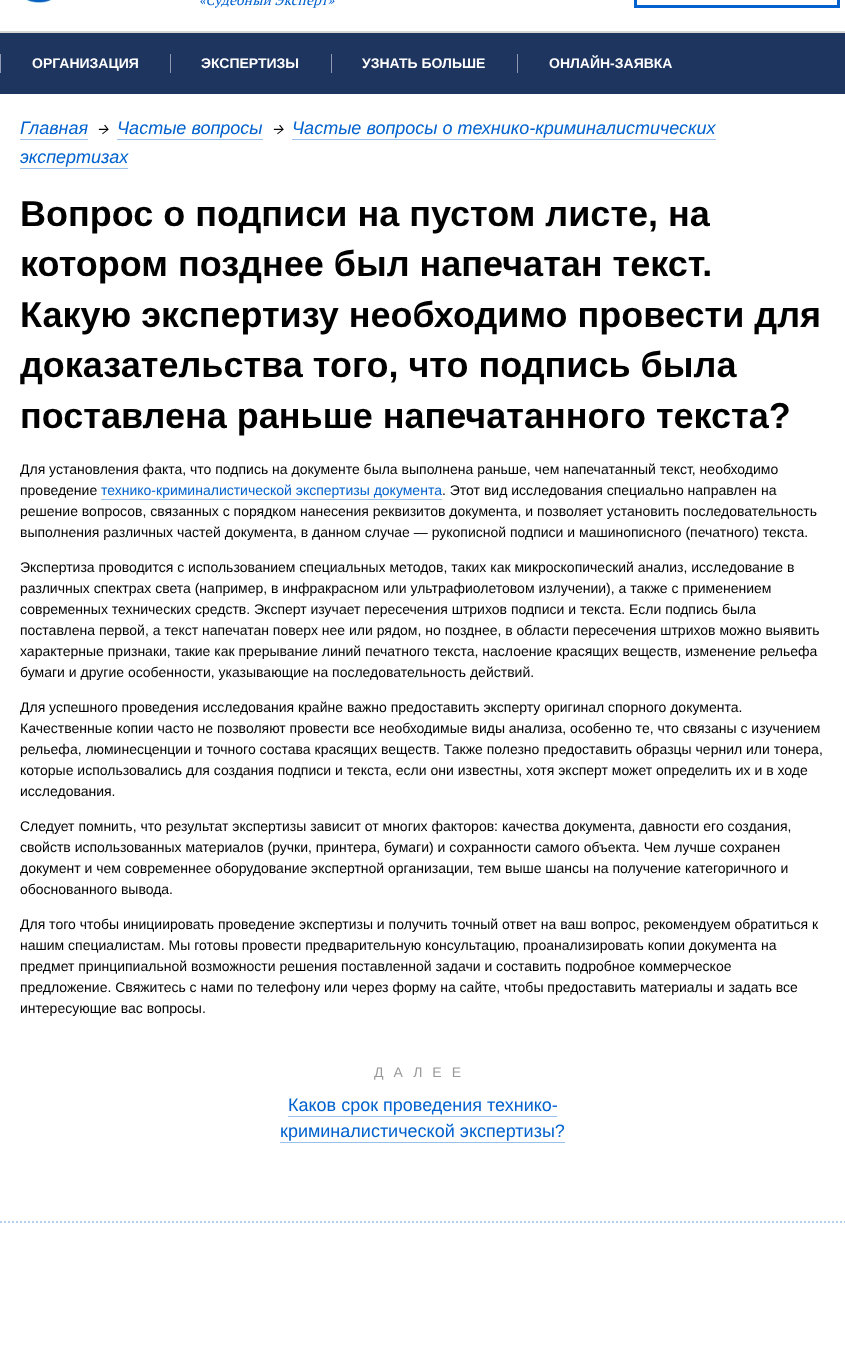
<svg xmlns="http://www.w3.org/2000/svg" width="845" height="1348">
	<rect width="100%" height="100%" fill="#FFFFFF" />
	<image x="25" y="0" width="31" height="6" href="assets/img1.png" />
	<text x="199" y="5" font-family="PT Serif" font-size="14" font-style="italic" fill="#0161CE">«Судебный Эксперт»</text>
	<rect x="635.5" y="-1.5" width="203" height="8" fill="none" stroke="#0161CE" stroke-width="3" />
	<rect x="0" y="33" width="845" height="61" fill="#1E3560" />
	<rect x="0" y="31" width="845" height="2" fill="#D7D7D7" />
	<rect x="0" y="54" width="1" height="19" fill="#8F9AB0" />
	<text x="32" y="68" font-family="Liberation Sans" font-size="14" font-weight="700" fill="#FFFFFF">ОРГАНИЗАЦИЯ</text>
	<rect x="170" y="54" width="1" height="19" fill="#8F9AB0" />
	<text x="201" y="68" font-family="Liberation Sans" font-size="14" font-weight="700" fill="#FFFFFF">ЭКСПЕРТИЗЫ</text>
	<rect x="331" y="54" width="1" height="19" fill="#8F9AB0" />
	<text x="362" y="68" font-family="Liberation Sans" font-size="14" font-weight="700" fill="#FFFFFF">УЗНАТЬ БОЛЬШЕ</text>
	<rect x="517" y="54" width="1" height="19" fill="#8F9AB0" />
	<text x="549" y="68" font-family="Liberation Sans" font-size="14" font-weight="700" fill="#FFFFFF">ОНЛАЙН-ЗАЯВКА</text>
	<text x="20" y="134" font-family="Liberation Sans" font-size="18" font-style="italic" fill="#0161CE">Главная</text>
	<rect x="20" y="139" width="68" height="1" fill="#99C0EB" />
	<text x="97" y="134" font-family="Source Sans Pro" font-size="18" font-style="italic" fill="#000000">→</text>
	<text x="117" y="134" font-family="Liberation Sans" font-size="18" font-style="italic" fill="#0161CE">Частые вопросы</text>
	<rect x="117" y="139" width="146" height="1" fill="#99C0EB" />
	<text x="272" y="134" font-family="Source Sans Pro" font-size="18" font-style="italic" fill="#000000">→</text>
	<text x="292" y="134" font-family="Liberation Sans" font-size="18" font-style="italic" fill="#0161CE">Частые вопросы о технико-криминалистических</text>
	<rect x="292" y="139" width="424" height="1" fill="#99C0EB" />
	<text x="20" y="163" font-family="Liberation Sans" font-size="18" font-style="italic" fill="#0161CE">экспертизах</text>
	<rect x="20" y="168" width="108" height="1" fill="#99C0EB" />
	<g font-family="Liberation Sans" font-size="36" font-weight="700" fill="#000000">
		<text x="20" y="226">Вопрос о подписи на пустом листе, на</text>
		<text x="20" y="276">котором позднее был напечатан текст.</text>
		<text x="20" y="327">Какую экспертизу необходимо провести для</text>
		<text x="20" y="377">доказательства того, что подпись была</text>
		<text x="20" y="428">поставлена раньше напечатанного текста?</text>
	</g>
	<g font-family="Liberation Sans" font-size="14" fill="#000000">
		<text x="20" y="474">Для установления факта, что подпись на документе была выполнена раньше, чем напечатанный текст, необходимо</text>
		<text x="20" y="495">проведение</text>
	</g>
	<text x="101" y="495" font-family="Liberation Sans" font-size="14" fill="#0161CE">технико-криминалистической экспертизы документа</text>
	<rect x="101" y="499" width="341" height="1" fill="#99C0EB" />
	<g font-family="Liberation Sans" font-size="14" fill="#000000">
		<text x="442" y="495">. Этот вид исследования специально направлен на</text>
		<text x="20" y="516">решение вопросов, связанных с порядком нанесения реквизитов документа, и позволяет установить последовательность</text>
		<text x="20" y="537">выполнения различных частей документа, в данном случае — рукописной подписи и машинописного (печатного) текста.</text>
		<text x="20" y="572">Экспертиза проводится с использованием специальных методов, таких как микроскопический анализ, исследование в</text>
		<text x="20" y="593">различных спектрах света (например, в инфракрасном или ультрафиолетовом излучении), а также с применением</text>
		<text x="20" y="614">современных технических средств. Эксперт изучает пересечения штрихов подписи и текста. Если подпись была</text>
		<text x="20" y="635">поставлена первой, а текст напечатан поверх нее или рядом, но позднее, в области пересечения штрихов можно выявить</text>
		<text x="20" y="656">характерные признаки, такие как прерывание линий печатного текста, наслоение красящих веществ, изменение рельефа</text>
		<text x="20" y="677">бумаги и другие особенности, указывающие на последовательность действий.</text>
		<text x="20" y="712">Для успешного проведения исследования крайне важно предоставить эксперту оригинал спорного документа.</text>
		<text x="20" y="733">Качественные копии часто не позволяют провести все необходимые виды анализа, особенно те, что связаны с изучением</text>
		<text x="20" y="754">рельефа, люминесценции и точного состава красящих веществ. Также полезно предоставить образцы чернил или тонера,</text>
		<text x="20" y="775">которые использовались для создания подписи и текста, если они известны, хотя эксперт может определить их и в ходе</text>
		<text x="20" y="796">исследования.</text>
		<text x="20" y="831">Следует помнить, что результат экспертизы зависит от многих факторов: качества документа, давности его создания,</text>
		<text x="20" y="852">свойств использованных материалов (ручки, принтера, бумаги) и сохранности самого объекта. Чем лучше сохранен</text>
		<text x="20" y="873">документ и чем современнее оборудование экспертной организации, тем выше шансы на получение категоричного и</text>
		<text x="20" y="894">обоснованного вывода.</text>
		<text x="20" y="929">Для того чтобы инициировать проведение экспертизы и получить точный ответ на ваш вопрос, рекомендуем обратиться к</text>
		<text x="20" y="950">нашим специалистам. Мы готовы провести предварительную консультацию, проанализировать копии документа на</text>
		<text x="20" y="971">предмет принципиальной возможности решения поставленной задачи и составить подробное коммерческое</text>
		<text x="20" y="992">предложение. Свяжитесь с нами по телефону или через форму на сайте, чтобы предоставить материалы и задать все</text>
		<text x="20" y="1013">интересующие вас вопросы.</text>
	</g>
	<text x="374" y="1077" font-family="Liberation Sans" font-size="14" letter-spacing="10" fill="#999999">ДАЛЕЕ</text>
	<text x="288" y="1111" font-family="Liberation Sans" font-size="18" fill="#0161CE">Каков срок проведения технико-</text>
	<rect x="288" y="1116" width="269" height="1" fill="#99C0EB" />
	<text x="280" y="1137" font-family="Liberation Sans" font-size="18" fill="#0161CE">криминалистической экспертизы?</text>
	<rect x="280" y="1142" width="285" height="1" fill="#99C0EB" />
	<path d="M0 1222H845" fill="none" stroke="#B3D0F0" stroke-width="2" stroke-dasharray="2 2" />
</svg>
